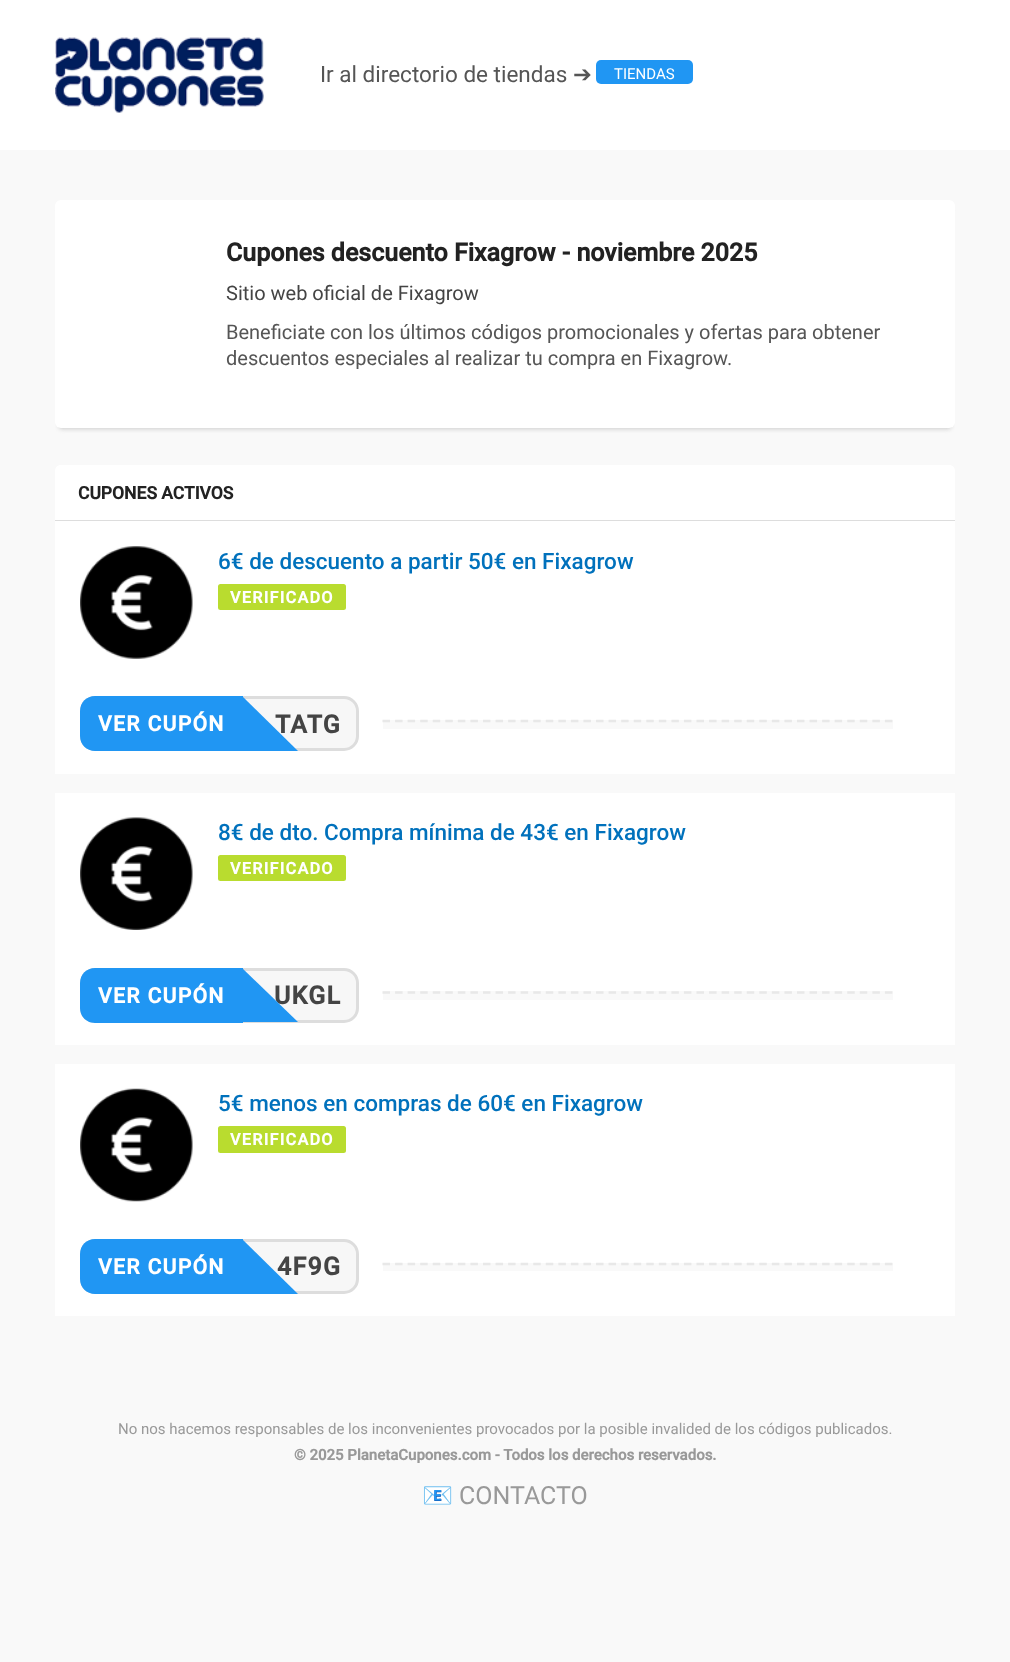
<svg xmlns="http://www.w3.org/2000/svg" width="1010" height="1662">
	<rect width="100%" height="100%" fill="#F9F9F9" />
	<rect x="0" y="0" width="1010" height="150" fill="#FFFFFF" />
	<image x="55" y="37" width="209" height="76" href="assets/img1.png" />
	<text x="320" y="82" font-family="Roboto" font-size="22.5" fill="#555555">Ir al directorio de tiendas</text>
	<text x="573" y="82" font-family="DejaVu Sans" font-size="22.5" fill="#555555">➔</text>
	<rect x="596" y="60" width="97" height="24" rx="5" fill="#2096F3" />
	<text x="614" y="79" font-family="Roboto" font-size="15" fill="#FFFFFF">TIENDAS</text>
	<rect x="59" y="209" width="892" height="220" rx="2.5" fill="#CCCCCC" filter="blur(2px)" />
	<rect x="55" y="200" width="900" height="228" rx="6" fill="#FFFFFF" />
	<text x="226" y="261" font-family="Roboto" font-size="25" font-weight="700" fill="#222222">Cupones descuento Fixagrow - noviembre 2025</text>
	<text x="226" y="300" font-family="Roboto" font-size="20" fill="#444444">Sitio web oficial de Fixagrow</text>
	<g font-family="Roboto" font-size="20" fill="#555555">
		<text x="226" y="339">Beneficiate con los últimos códigos promocionales y ofertas para obtener</text>
		<text x="226" y="365">descuentos especiales al realizar tu compra en Fixagrow.</text>
	</g>
	<path d="M61 465H949C952.5 465 955 467.5 955 471V521H55V471C55 467.5 57.5 465 61 465Z" fill="#FFFFFF" />
	<rect x="55" y="520" width="900" height="1" fill="#DDDDDD" />
	<text x="78" y="499" font-family="Roboto" font-size="17.5" font-weight="700" fill="#222222">CUPONES ACTIVOS</text>
	<rect x="55" y="521" width="900" height="253" fill="#FFFFFF" />
	<image x="80" y="546" width="113" height="113" href="assets/img2.png" />
	<text x="218" y="569" font-family="Roboto" font-size="22.5" font-weight="500" fill="#0071BC">6€ de descuento a partir 50€ en Fixagrow</text>
	<rect x="218" y="584" width="128" height="26" rx="2.5" fill="#B9DC2F" />
	<text x="230" y="603" font-family="Roboto" font-size="16.25" font-weight="700" letter-spacing="1.25" fill="#FFFFFF">VERIFICADO</text>
	<rect x="81.5" y="697.5" width="276" height="52" rx="13.5" fill="#F7F7F7" stroke="#DDDDDD" stroke-width="3" />
	<path d="M95 696H243V751H95C86.5 751 80 744.5 80 736V711C80 702.5 86.5 696 95 696Z" fill="#2096F3" />
	<text x="98" y="731" font-family="Roboto" font-size="21.25" font-weight="700" letter-spacing="1.25" fill="#FFFFFF">VER CUPÓN</text>
	<text x="275" y="733" font-family="Roboto" font-size="25" font-weight="700" letter-spacing="1.25" fill="#444444">TATG</text>
	<path d="M242 751V696L298 751Z" fill="#2096F3" />
	<rect x="383" y="720" width="510" height="9" fill="#F9F9F9" />
	<path d="M382.5 721H892.5" fill="none" stroke="#E8E8E8" stroke-width="2.5" stroke-dasharray="7.5 5.06" />
	<rect x="55" y="793" width="900" height="252" fill="#FFFFFF" />
	<image x="80" y="817" width="113" height="113" href="assets/img3.png" />
	<text x="218" y="840" font-family="Roboto" font-size="22.5" font-weight="500" fill="#0071BC">8€ de dto. Compra mínima de 43€ en Fixagrow</text>
	<rect x="218" y="855" width="128" height="26" rx="2.5" fill="#B9DC2F" />
	<text x="230" y="874" font-family="Roboto" font-size="16.25" font-weight="700" letter-spacing="1.25" fill="#FFFFFF">VERIFICADO</text>
	<rect x="81.5" y="969.5" width="276" height="52" rx="13.5" fill="#F7F7F7" stroke="#DDDDDD" stroke-width="3" />
	<path d="M95 968H243V1023H95C86.5 1023 80 1016.5 80 1008V983C80 974.5 86.5 968 95 968Z" fill="#2096F3" />
	<text x="98" y="1003" font-family="Roboto" font-size="21.25" font-weight="700" letter-spacing="1.25" fill="#FFFFFF">VER CUPÓN</text>
	<text x="274" y="1004" font-family="Roboto" font-size="25" font-weight="700" letter-spacing="1.25" fill="#444444">UKGL</text>
	<path d="M242 1022V968L298 1022Z" fill="#2096F3" />
	<rect x="383" y="991" width="510" height="9" fill="#F9F9F9" />
	<path d="M382.5 992.5H892.5" fill="none" stroke="#E8E8E8" stroke-width="2.5" stroke-dasharray="7.5 5.06" />
	<rect x="55" y="1064" width="900" height="252" fill="#FFFFFF" />
	<image x="80" y="1088" width="113" height="114" href="assets/img4.png" />
	<text x="218" y="1111" font-family="Roboto" font-size="22.5" font-weight="500" fill="#0071BC">5€ menos en compras de 60€ en Fixagrow</text>
	<rect x="218" y="1126" width="128" height="27" rx="2.5" fill="#B9DC2F" />
	<text x="230" y="1145" font-family="Roboto" font-size="16.25" font-weight="700" letter-spacing="1.25" fill="#FFFFFF">VERIFICADO</text>
	<rect x="81.5" y="1240.5" width="276" height="52" rx="13.5" fill="#F7F7F7" stroke="#DDDDDD" stroke-width="3" />
	<path d="M95 1239H243V1294H95C86.5 1294 80 1287.5 80 1279V1254C80 1245.5 86.5 1239 95 1239Z" fill="#2096F3" />
	<text x="98" y="1274" font-family="Roboto" font-size="21.25" font-weight="700" letter-spacing="1.25" fill="#FFFFFF">VER CUPÓN</text>
	<text x="277" y="1275" font-family="Roboto" font-size="25" font-weight="700" letter-spacing="1.25" fill="#444444">4F9G</text>
	<path d="M242 1294V1239L298 1294Z" fill="#2096F3" />
	<rect x="383" y="1263" width="510" height="8" fill="#F9F9F9" />
	<path d="M382.5 1264H892.5" fill="none" stroke="#E8E8E8" stroke-width="2.5" stroke-dasharray="7.5 5.06" />
	<text x="118" y="1434" font-family="Roboto" font-size="15" fill="#999999">No nos hacemos responsables de los inconvenientes provocados por la posible invalided de los códigos publicados.</text>
	<text x="294" y="1460" font-family="Roboto" font-size="15" font-weight="700" fill="#999999">© 2025 PlanetaCupones.com - Todos los derechos reservados.</text>
	<text x="422" y="1504" font-family="Noto Color Emoji" font-size="25" fill="#999999">📧</text>
	<text x="459" y="1504" font-family="Roboto" font-size="25" fill="#999999">CONTACTO</text>
</svg>
